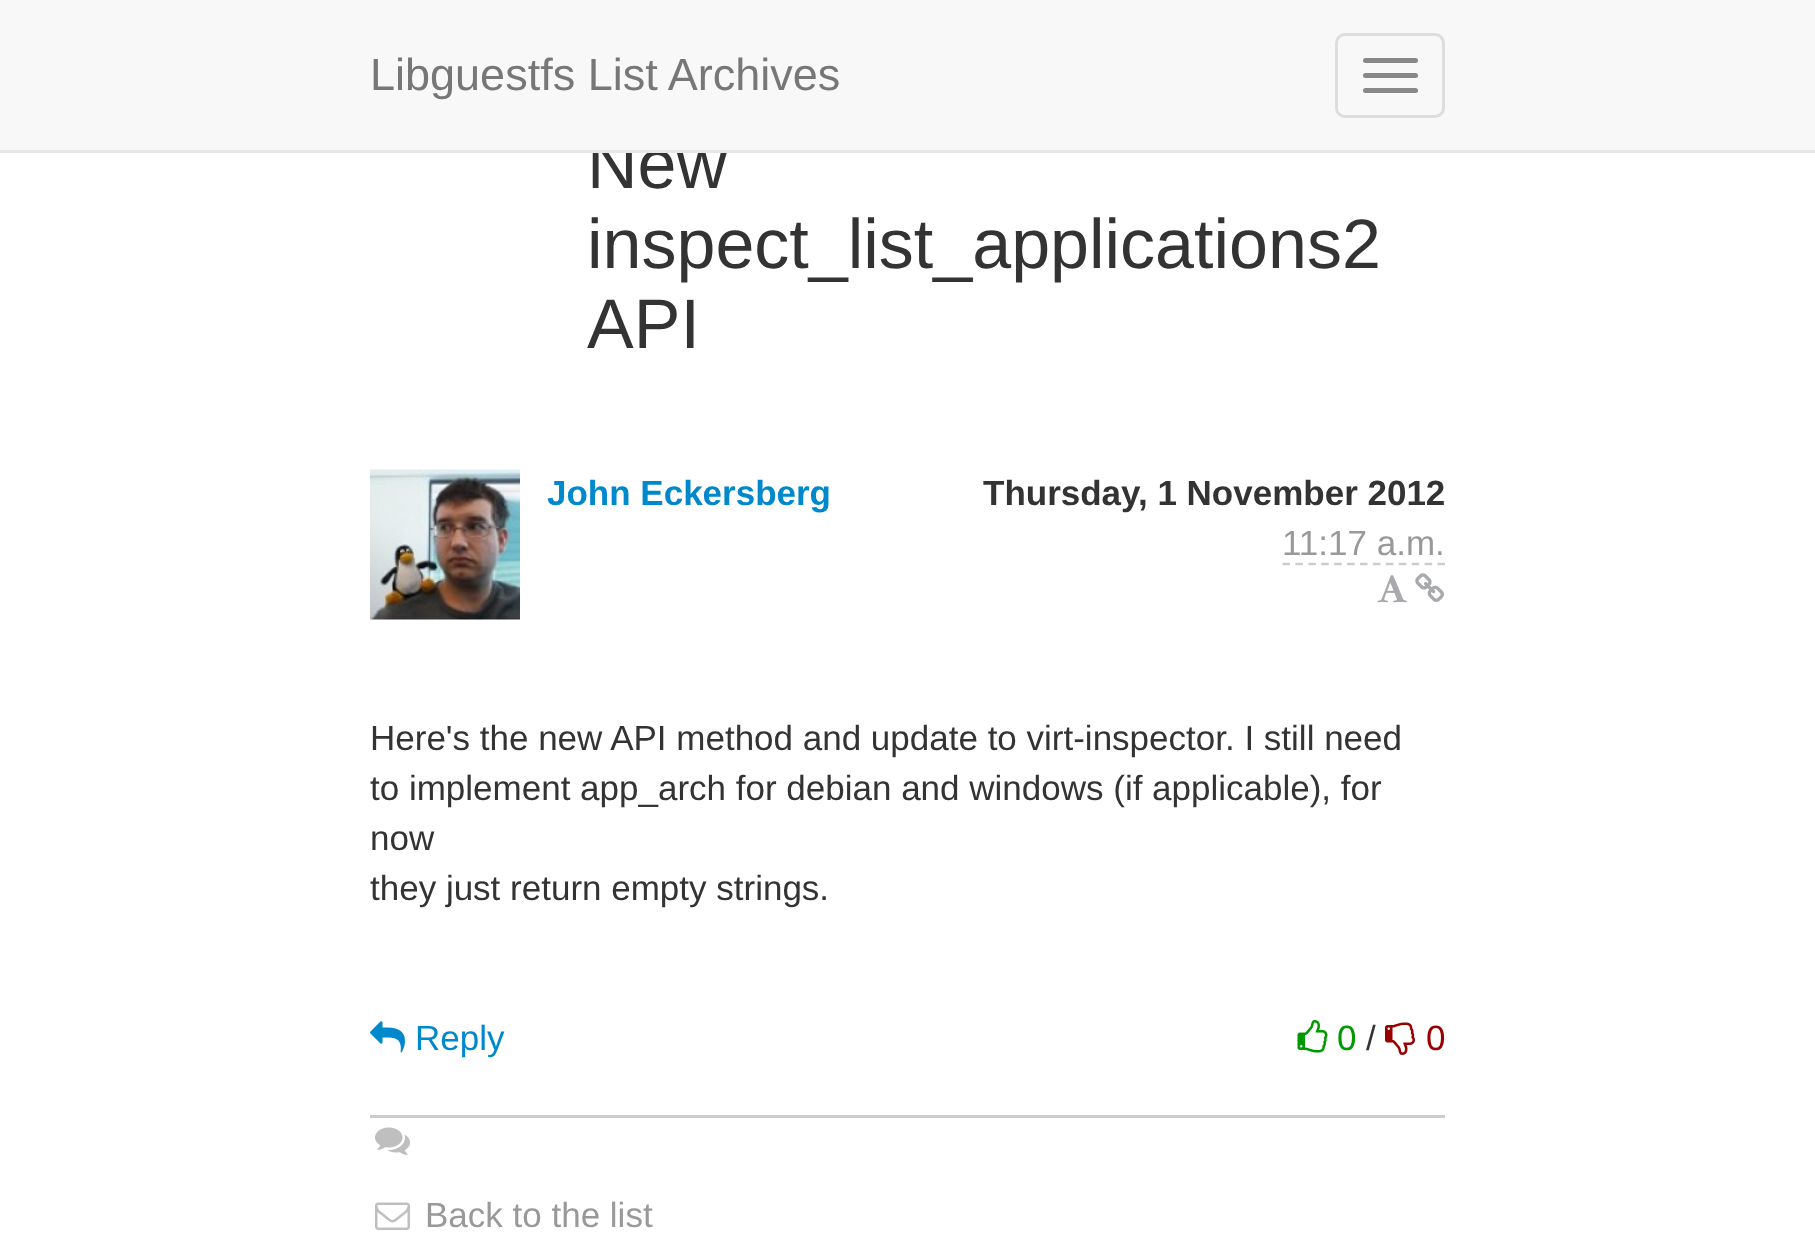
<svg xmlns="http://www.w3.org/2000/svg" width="1815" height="1250">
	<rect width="100%" height="100%" fill="#FFFFFF" />
	<text x="587" y="188" font-family="Liberation Sans" font-size="70" fill="#333333">New</text>
	<rect x="0" y="0" width="1815" height="150" fill="#F8F8F8" />
	<rect x="0" y="150" width="1815" height="3" fill="#E7E7E7" />
	<text x="370" y="90" font-family="Liberation Sans" font-size="45" fill="#777777">Libguestfs List Archives</text>
	<rect x="1336.5" y="34.5" width="107" height="82" rx="8.5" fill="none" stroke="#DDDDDD" stroke-width="3" />
	<rect x="1363" y="58" width="55" height="5" rx="2.5" fill="#888888" />
	<rect x="1363" y="73" width="55" height="5" rx="2.5" fill="#888888" />
	<rect x="1363" y="88" width="55" height="5" rx="2.5" fill="#888888" />
	<g font-family="Liberation Sans" font-size="70" fill="#333333">
		<text x="587" y="268">inspect_list_applications2</text>
		<text x="587" y="348">API</text>
	</g>
	<image x="370" y="469" width="150" height="151" href="assets/img1.png" />
	<text x="547" y="505" font-family="Liberation Sans" font-size="35" font-weight="700" fill="#0088CC">John Eckersberg</text>
	<text x="983" y="505" font-family="Liberation Sans" font-size="35" font-weight="700" fill="#333333">Thursday, 1 November 2012</text>
	<text x="1282" y="555" font-family="Liberation Sans" font-size="35" fill="#999999">11:17 a.m.</text>
	<path d="M1282.5 564H1445" fill="none" stroke="#CCCCCC" stroke-width="2.5" stroke-dasharray="7.5 5.42" />
	<image x="1377" y="575" width="30" height="28" href="assets/img2.png" />
	<image x="1415" y="573" width="29" height="29" href="assets/img3.png" />
	<g font-family="Liberation Sans" font-size="35" fill="#333333">
		<text x="370" y="750">Here's the new API method and update to virt-inspector. I still need</text>
		<text x="370" y="800">to implement app_arch for debian and windows (if applicable), for</text>
		<text x="370" y="850">now</text>
		<text x="370" y="900">they just return empty strings.</text>
	</g>
	<rect x="370" y="1115" width="1075" height="3" fill="#CCCCCC" />
	<image x="370" y="1021" width="35" height="32" href="assets/img4.png" />
	<text x="415" y="1050" font-family="Liberation Sans" font-size="35" fill="#0088CC">Reply</text>
	<image x="1297" y="1020" width="31" height="33" href="assets/img5.png" />
	<text x="1337" y="1050" font-family="Liberation Sans" font-size="35" fill="#009900">0</text>
	<text x="1366" y="1050" font-family="Liberation Sans" font-size="35" fill="#333333">/</text>
	<image x="1385" y="1022" width="30" height="33" href="assets/img6.png" />
	<text x="1426" y="1050" font-family="Liberation Sans" font-size="35" fill="#990000">0</text>
	<image x="375" y="1127" width="35" height="28" href="assets/img7.png" />
	<image x="375" y="1202" width="35" height="28" href="assets/img8.png" />
	<text x="425" y="1227" font-family="Liberation Sans" font-size="35" fill="#999999">Back to the list</text>
</svg>
